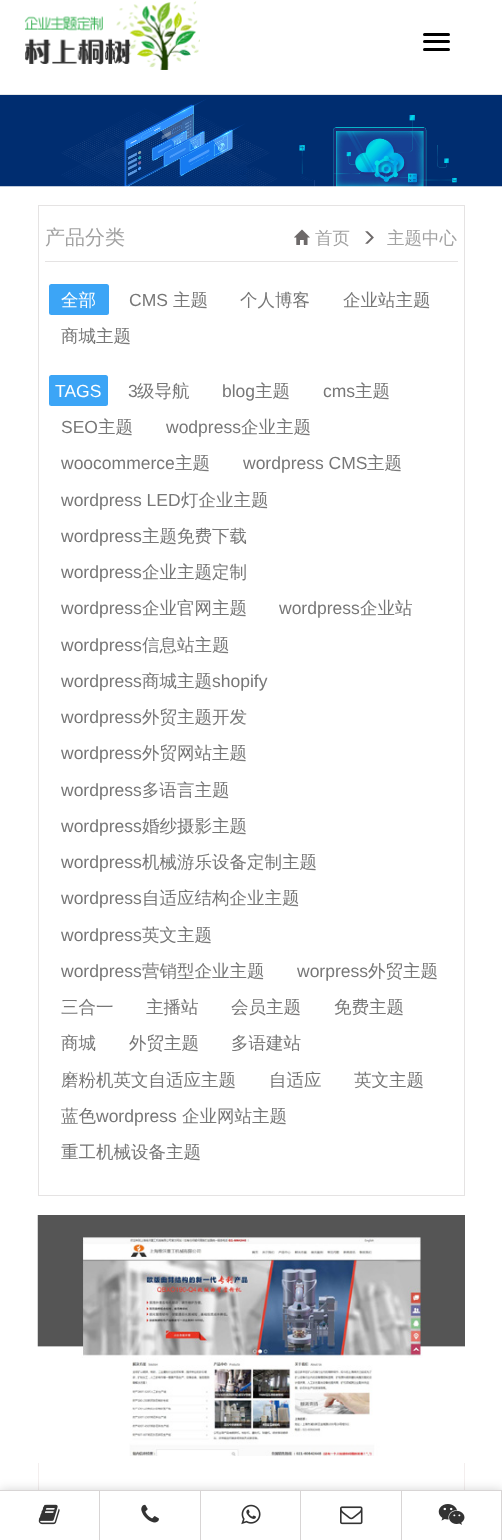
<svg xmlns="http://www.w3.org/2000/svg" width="502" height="1540">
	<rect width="100%" height="100%" fill="#FFFFFF" />
	<rect x="0" y="94" width="502" height="1" fill="#E6E8E9" />
	<image x="24" y="1" width="176" height="69" href="assets/img1.png" />
	<rect x="423" y="33" width="27" height="3" rx="1.5" fill="#000000" />
	<rect x="423" y="40" width="27" height="3" rx="1.5" fill="#000000" />
	<rect x="423" y="48" width="27" height="3" rx="1.5" fill="#000000" />
	<image x="0" y="95" width="502" height="92" href="assets/img2.png" />
	<rect x="38.5" y="205.5" width="426" height="990" fill="none" stroke="#E5E3E3" />
	<rect x="45" y="261" width="413" height="1" fill="#E5E3E3" />
	<text x="45" y="244" font-family="WenQuanYi Zen Hei" font-size="20" font-weight="500" fill="#A2A2A2">产品分类</text>
	<image x="294" y="229" width="16" height="16" href="assets/img3.png" />
	<text x="315" y="244" font-family="WenQuanYi Zen Hei" font-size="17.5" font-weight="500" fill="#A2A2A2">首页</text>
	<image x="365" y="231" width="9" height="13" href="assets/img4.png" />
	<text x="387" y="244" font-family="WenQuanYi Zen Hei" font-size="17.5" font-weight="500" fill="#A2A2A2">主题中心</text>
	<rect x="49" y="284" width="60" height="31" rx="2.5" fill="#3CA5F6" />
	<text x="61" y="306" font-family="WenQuanYi Zen Hei" font-size="17.5" font-weight="500" fill="#FFFFFF">全部</text>
	<text x="129" y="306" font-family="Liberation Sans" font-size="17.5" fill="#777777">CMS</text>
	<g font-family="WenQuanYi Zen Hei" font-size="17.5" font-weight="500" fill="#777777">
		<text x="173" y="306">主题</text>
		<text x="240" y="306">个人博客</text>
		<text x="343" y="306">企业站主题</text>
		<text x="61" y="342">商城主题</text>
	</g>
	<rect x="49" y="375" width="59" height="31" rx="2.5" fill="#3CA5F6" />
	<text x="55" y="397" font-family="Liberation Sans" font-size="17.5" fill="#FFFFFF">TAGS</text>
	<text x="128" y="397" font-family="Liberation Sans" font-size="17.5" fill="#777777">3</text>
	<text x="137" y="397" font-family="WenQuanYi Zen Hei" font-size="17.5" font-weight="500" fill="#777777">级导航</text>
	<text x="222" y="397" font-family="Liberation Sans" font-size="17.5" fill="#777777">blog</text>
	<text x="255" y="397" font-family="WenQuanYi Zen Hei" font-size="17.5" font-weight="500" fill="#777777">主题</text>
	<text x="323" y="397" font-family="Liberation Sans" font-size="17.5" fill="#777777">cms</text>
	<text x="355" y="397" font-family="WenQuanYi Zen Hei" font-size="17.5" font-weight="500" fill="#777777">主题</text>
	<text x="61" y="433" font-family="Liberation Sans" font-size="17.5" fill="#777777">SEO</text>
	<text x="98" y="433" font-family="WenQuanYi Zen Hei" font-size="17.5" font-weight="500" fill="#777777">主题</text>
	<text x="166" y="433" font-family="Liberation Sans" font-size="17.5" fill="#777777">wodpress</text>
	<text x="241" y="433" font-family="WenQuanYi Zen Hei" font-size="17.5" font-weight="500" fill="#777777">企业主题</text>
	<text x="61" y="469" font-family="Liberation Sans" font-size="17.5" fill="#777777">woocommerce</text>
	<text x="175" y="469" font-family="WenQuanYi Zen Hei" font-size="17.5" font-weight="500" fill="#777777">主题</text>
	<text x="243" y="469" font-family="Liberation Sans" font-size="17.5" fill="#777777">wordpress CMS</text>
	<text x="367" y="469" font-family="WenQuanYi Zen Hei" font-size="17.5" font-weight="500" fill="#777777">主题</text>
	<text x="61" y="506" font-family="Liberation Sans" font-size="17.5" fill="#777777">wordpress LED</text>
	<text x="181" y="506" font-family="WenQuanYi Zen Hei" font-size="17.5" font-weight="500" fill="#777777">灯企业主题</text>
	<text x="61" y="542" font-family="Liberation Sans" font-size="17.5" fill="#777777">wordpress</text>
	<text x="142" y="542" font-family="WenQuanYi Zen Hei" font-size="17.5" font-weight="500" fill="#777777">主题免费下载</text>
	<text x="61" y="578" font-family="Liberation Sans" font-size="17.5" fill="#777777">wordpress</text>
	<text x="142" y="578" font-family="WenQuanYi Zen Hei" font-size="17.5" font-weight="500" fill="#777777">企业主题定制</text>
	<text x="61" y="614" font-family="Liberation Sans" font-size="17.5" fill="#777777">wordpress</text>
	<text x="142" y="614" font-family="WenQuanYi Zen Hei" font-size="17.5" font-weight="500" fill="#777777">企业官网主题</text>
	<text x="279" y="614" font-family="Liberation Sans" font-size="17.5" fill="#777777">wordpress</text>
	<text x="360" y="614" font-family="WenQuanYi Zen Hei" font-size="17.5" font-weight="500" fill="#777777">企业站</text>
	<text x="61" y="651" font-family="Liberation Sans" font-size="17.5" fill="#777777">wordpress</text>
	<text x="142" y="651" font-family="WenQuanYi Zen Hei" font-size="17.5" font-weight="500" fill="#777777">信息站主题</text>
	<text x="61" y="687" font-family="Liberation Sans" font-size="17.5" fill="#777777">wordpress</text>
	<text x="142" y="687" font-family="WenQuanYi Zen Hei" font-size="17.5" font-weight="500" fill="#777777">商城主题</text>
	<g font-family="Liberation Sans" font-size="17.5" fill="#777777">
		<text x="212" y="687">shopify</text>
		<text x="61" y="723">wordpress</text>
	</g>
	<text x="142" y="723" font-family="WenQuanYi Zen Hei" font-size="17.5" font-weight="500" fill="#777777">外贸主题开发</text>
	<text x="61" y="759" font-family="Liberation Sans" font-size="17.5" fill="#777777">wordpress</text>
	<text x="142" y="759" font-family="WenQuanYi Zen Hei" font-size="17.5" font-weight="500" fill="#777777">外贸网站主题</text>
	<text x="61" y="796" font-family="Liberation Sans" font-size="17.5" fill="#777777">wordpress</text>
	<text x="142" y="796" font-family="WenQuanYi Zen Hei" font-size="17.5" font-weight="500" fill="#777777">多语言主题</text>
	<text x="61" y="832" font-family="Liberation Sans" font-size="17.5" fill="#777777">wordpress</text>
	<text x="142" y="832" font-family="WenQuanYi Zen Hei" font-size="17.5" font-weight="500" fill="#777777">婚纱摄影主题</text>
	<text x="61" y="868" font-family="Liberation Sans" font-size="17.5" fill="#777777">wordpress</text>
	<text x="142" y="868" font-family="WenQuanYi Zen Hei" font-size="17.5" font-weight="500" fill="#777777">机械游乐设备定制主题</text>
	<text x="61" y="904" font-family="Liberation Sans" font-size="17.5" fill="#777777">wordpress</text>
	<text x="142" y="904" font-family="WenQuanYi Zen Hei" font-size="17.5" font-weight="500" fill="#777777">自适应结构企业主题</text>
	<text x="61" y="941" font-family="Liberation Sans" font-size="17.5" fill="#777777">wordpress</text>
	<text x="142" y="941" font-family="WenQuanYi Zen Hei" font-size="17.5" font-weight="500" fill="#777777">英文主题</text>
	<text x="61" y="977" font-family="Liberation Sans" font-size="17.5" fill="#777777">wordpress</text>
	<text x="142" y="977" font-family="WenQuanYi Zen Hei" font-size="17.5" font-weight="500" fill="#777777">营销型企业主题</text>
	<text x="297" y="977" font-family="Liberation Sans" font-size="17.5" fill="#777777">worpress</text>
	<g font-family="WenQuanYi Zen Hei" font-size="17.5" font-weight="500" fill="#777777">
		<text x="368" y="977">外贸主题</text>
		<text x="61" y="1013">三合一</text>
		<text x="146" y="1013">主播站</text>
		<text x="231" y="1013">会员主题</text>
		<text x="334" y="1013">免费主题</text>
		<text x="61" y="1049">商城</text>
		<text x="129" y="1049">外贸主题</text>
		<text x="231" y="1049">多语建站</text>
		<text x="61" y="1086">磨粉机英文自适应主题</text>
		<text x="269" y="1086">自适应</text>
		<text x="354" y="1086">英文主题</text>
		<text x="61" y="1122">蓝色</text>
	</g>
	<text x="96" y="1122" font-family="Liberation Sans" font-size="17.5" fill="#777777">wordpress</text>
	<g font-family="WenQuanYi Zen Hei" font-size="17.5" font-weight="500" fill="#777777">
		<text x="182" y="1122">企业网站主题</text>
		<text x="61" y="1158">重工机械设备主题</text>
	</g>
	<image x="37" y="1215" width="428" height="241" href="assets/img5.png" />
	<rect x="464" y="1463" width="1" height="27" fill="#F3EEEE" />
	<rect x="38" y="1463" width="1" height="27" fill="#F3EEEE" />
	<rect x="0" y="1491" width="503" height="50" fill="#000000" fill-opacity="0.2" filter="blur(6px)" />
	<rect x="0" y="1491" width="501" height="49" fill="#FFFFFF" />
	<rect x="0" y="1490" width="502" height="1" fill="#D8D5D5" />
	<rect x="99" y="1491" width="1" height="49" fill="#D8D5D5" />
	<image x="38" y="1504" width="22" height="21" href="assets/img6.png" />
	<rect x="200" y="1491" width="1" height="49" fill="#D8D5D5" />
	<image x="141" y="1504" width="18" height="19" href="assets/img7.png" />
	<rect x="300" y="1491" width="1" height="49" fill="#D8D5D5" />
	<image x="241" y="1504" width="20" height="21" href="assets/img8.png" />
	<rect x="401" y="1491" width="1" height="49" fill="#D8D5D5" />
	<image x="340" y="1506" width="23" height="19" href="assets/img9.png" />
	<rect x="501" y="1491" width="1" height="49" fill="#D8D5D5" />
	<image x="438" y="1504" width="27" height="21" href="assets/img10.png" />
</svg>
